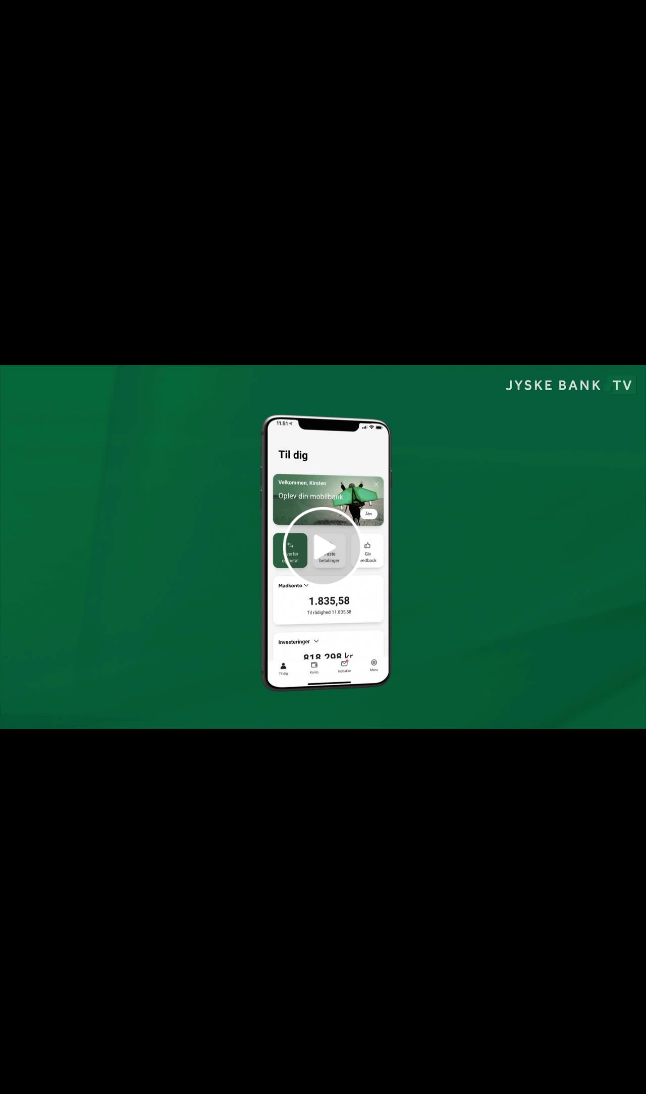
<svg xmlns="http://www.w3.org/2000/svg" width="646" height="1094">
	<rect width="100%" height="100%" fill="#000000" />
	<image x="0" y="365" width="646" height="364" href="assets/img1.png" />
	<image x="0" y="366" width="638" height="326" href="assets/img2.png" />
	<image x="283" y="507" width="79" height="78" href="assets/img3.png" />
</svg>
